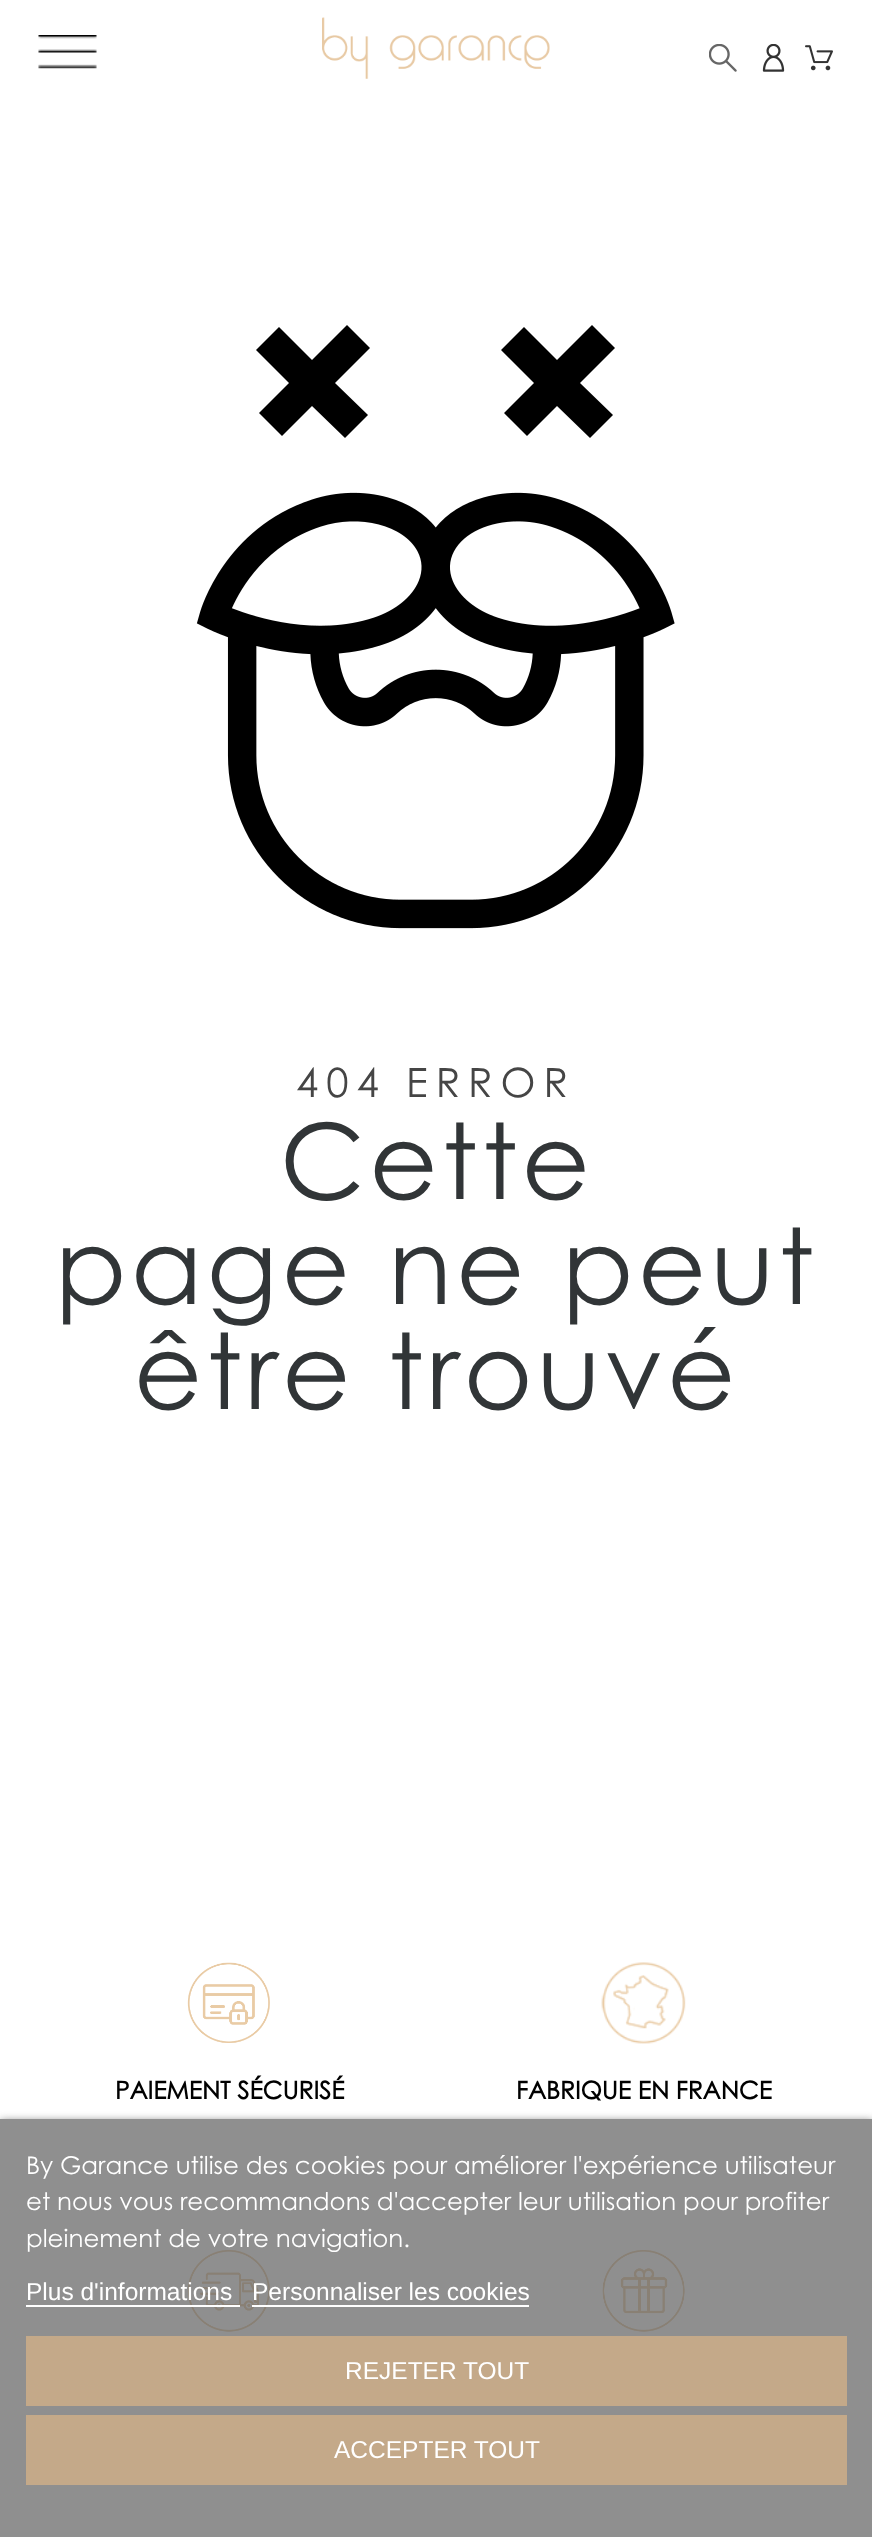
<svg xmlns="http://www.w3.org/2000/svg" width="872" height="2537">
	<defs>
		<clipPath id="clip1"><path d="M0 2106H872V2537H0ZM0 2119H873V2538H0Z" clip-rule="evenodd" /></clipPath>
	</defs>
	<rect width="100%" height="100%" fill="#FFFFFF" />
	<image x="38" y="35" width="59" height="34" href="assets/img1.png" />
	<image x="322" y="17" width="228" height="62" href="assets/img2.png" />
	<image x="709" y="44" width="28" height="28" href="assets/img3.png" />
	<image x="762" y="44" width="23" height="28" href="assets/img4.png" />
	<image x="805" y="45" width="28" height="26" href="assets/img5.png" />
	<path d="M370 348L347 325L312 360L279 327L256 350L289 383L259 413L282 436L312 406L345 438L368 415L335 383Z" fill="#000000" />
	<path d="M615 348L592 325L557 360L524 327L501 350L534 383L504 413L527 436L557 406L590 438L613 415L580 383Z" fill="#000000" />
	<image x="196" y="492" width="479" height="437" href="assets/img6.png" />
	<text x="296" y="1097" font-family="Century Gothic" font-size="40.25" letter-spacing="8" fill="#454545">404 ERROR</text>
	<g font-family="Century Gothic" font-size="105" letter-spacing="4.25" fill="#313537">
		<text x="280" y="1199">Cette</text>
		<text x="55" y="1304">page</text>
		<text x="388" y="1304">ne peut</text>
		<text x="134" y="1409">être trouvé</text>
	</g>
	<image x="187" y="1962" width="83" height="81" href="assets/img7.png" />
	<text x="115" y="2099" font-family="Century Gothic" font-size="24.5" font-weight="700" fill="#000000">PAIEMENT SÉCURISÉ</text>
	<image x="601" y="1962" width="85" height="82" href="assets/img8.png" />
	<text x="516" y="2099" font-family="Century Gothic" font-size="24.5" font-weight="700" fill="#000000">FABRIQUE EN FRANCE</text>
	<image x="187" y="2250" width="83" height="82" href="assets/img9.png" />
	<image x="602" y="2250" width="83" height="82" href="assets/img10.png" />
	<g clip-path="url(#clip1)">
		<rect x="0" y="2121" width="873" height="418" fill="#707070" filter="blur(4.5px)" />
	</g>
	<rect x="0" y="2119" width="872" height="418" fill="#606060" fill-opacity="0.7" />
	<g font-family="Century Gothic" font-size="24.5" fill="#FFFFFF">
		<text x="26" y="2174">By Garance utilise des cookies pour améliorer l'expérience utilisateur</text>
		<text x="26" y="2210">et nous vous recommandons d'accepter leur utilisation pour profiter</text>
		<text x="26" y="2247">pleinement de votre navigation.</text>
	</g>
	<text x="26" y="2300" font-family="Liberation Sans" font-size="24.5" fill="#FFFFFF">Plus d'informations</text>
	<rect x="26" y="2305" width="214" height="2" fill="#FFFFFF" />
	<text x="252" y="2300" font-family="Liberation Sans" font-size="24.5" fill="#FFFFFF">Personnaliser les cookies</text>
	<rect x="252" y="2305" width="277" height="2" fill="#FFFFFF" />
	<rect x="26" y="2336" width="821" height="70" fill="#C4A989" />
	<text x="345" y="2379" font-family="Liberation Sans" font-size="24.5" fill="#FFFFFF">REJETER TOUT</text>
	<rect x="26" y="2415" width="821" height="70" fill="#C4A989" />
	<text x="334" y="2458" font-family="Liberation Sans" font-size="24.5" fill="#FFFFFF">ACCEPTER TOUT</text>
</svg>
